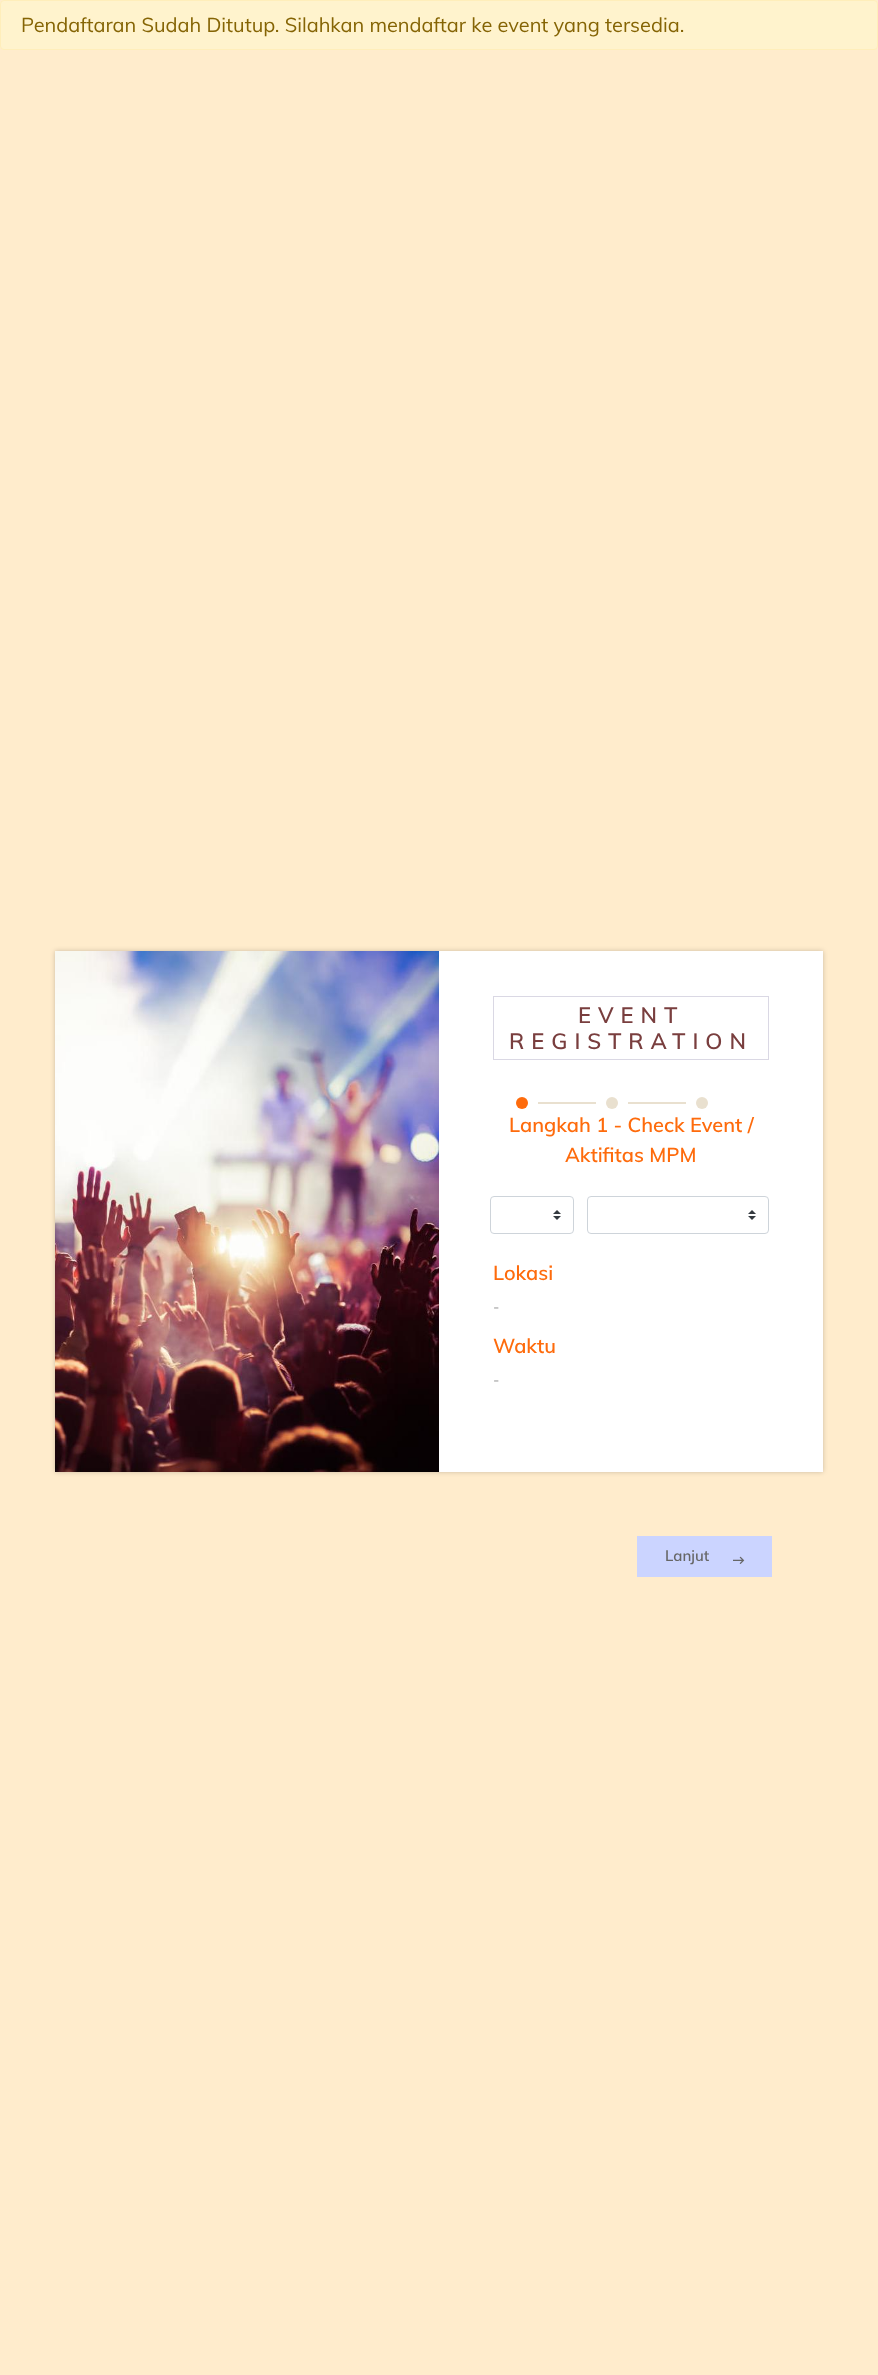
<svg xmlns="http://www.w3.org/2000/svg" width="878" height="2375">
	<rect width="100%" height="100%" fill="#FFECCC" />
	<rect x="0.5" y="0.5" width="877" height="49" rx="3.5" fill="#FFF3CD" stroke="#FFEEBA" />
	<text x="21" y="32" font-family="Muli" font-size="20" fill="#856404">Pendaftaran Sudah Ditutup. Silahkan mendaftar ke event yang tersedia.</text>
	<rect x="55" y="951" width="768" height="521" fill="#000000" fill-opacity="0.2" filter="blur(2.5px)" />
	<rect x="439" y="951" width="384" height="521" fill="#FFFFFF" />
	<image x="55" y="951" width="384" height="521" href="assets/img1.png" />
	<rect x="493.5" y="996.5" width="275" height="63" fill="none" stroke="#DAD8E4" />
	<g font-family="Muli" font-size="22" font-weight="600" letter-spacing="7" fill="#793E3E">
		<text x="578" y="1023">EVENT</text>
		<text x="509" y="1049">REGISTRATION</text>
	</g>
	<g font-family="Muli" font-size="20" font-weight="600" fill="#FE6B0C">
		<text x="509" y="1132">Langkah 1 - Check Event /</text>
		<text x="565" y="1162">Aktifitas MPM</text>
	</g>
	<image x="553" y="1210" width="8" height="10" href="assets/img2.png" />
	<rect x="490.5" y="1196.5" width="83" height="37" rx="3.5" fill="none" stroke="#CED4DA" />
	<image x="748" y="1210" width="8" height="10" href="assets/img2.png" />
	<rect x="587.5" y="1196.5" width="181" height="37" rx="3.5" fill="none" stroke="#CED4DA" />
	<text x="493" y="1280" font-family="Muli" font-size="20" font-weight="600" fill="#FE6B0C">Lokasi</text>
	<text x="493" y="1312" font-family="Muli" font-size="15" fill="#999999">-</text>
	<text x="493" y="1353" font-family="Muli" font-size="20" font-weight="600" fill="#FE6B0C">Waktu</text>
	<text x="493" y="1385" font-family="Muli" font-size="15" fill="#999999">-</text>
	<circle cx="522" cy="1103" r="6" fill="#FE6B0C" />
	<circle cx="612" cy="1103" r="6" fill="#E9E0CF" />
	<rect x="538" y="1102" width="58" height="2" fill="#E9E0CF" />
	<circle cx="702" cy="1103" r="6" fill="#E9E0CF" />
	<rect x="628" y="1102" width="58" height="2" fill="#E9E0CF" />
	<rect x="637" y="1536" width="135" height="41" fill="#CBD4FF" />
	<text x="665" y="1561" font-family="Muli" font-size="15" font-weight="600" fill="#666666">Lanjut</text>
	<image x="733" y="1556" width="12" height="8" href="assets/img3.png" />
</svg>
